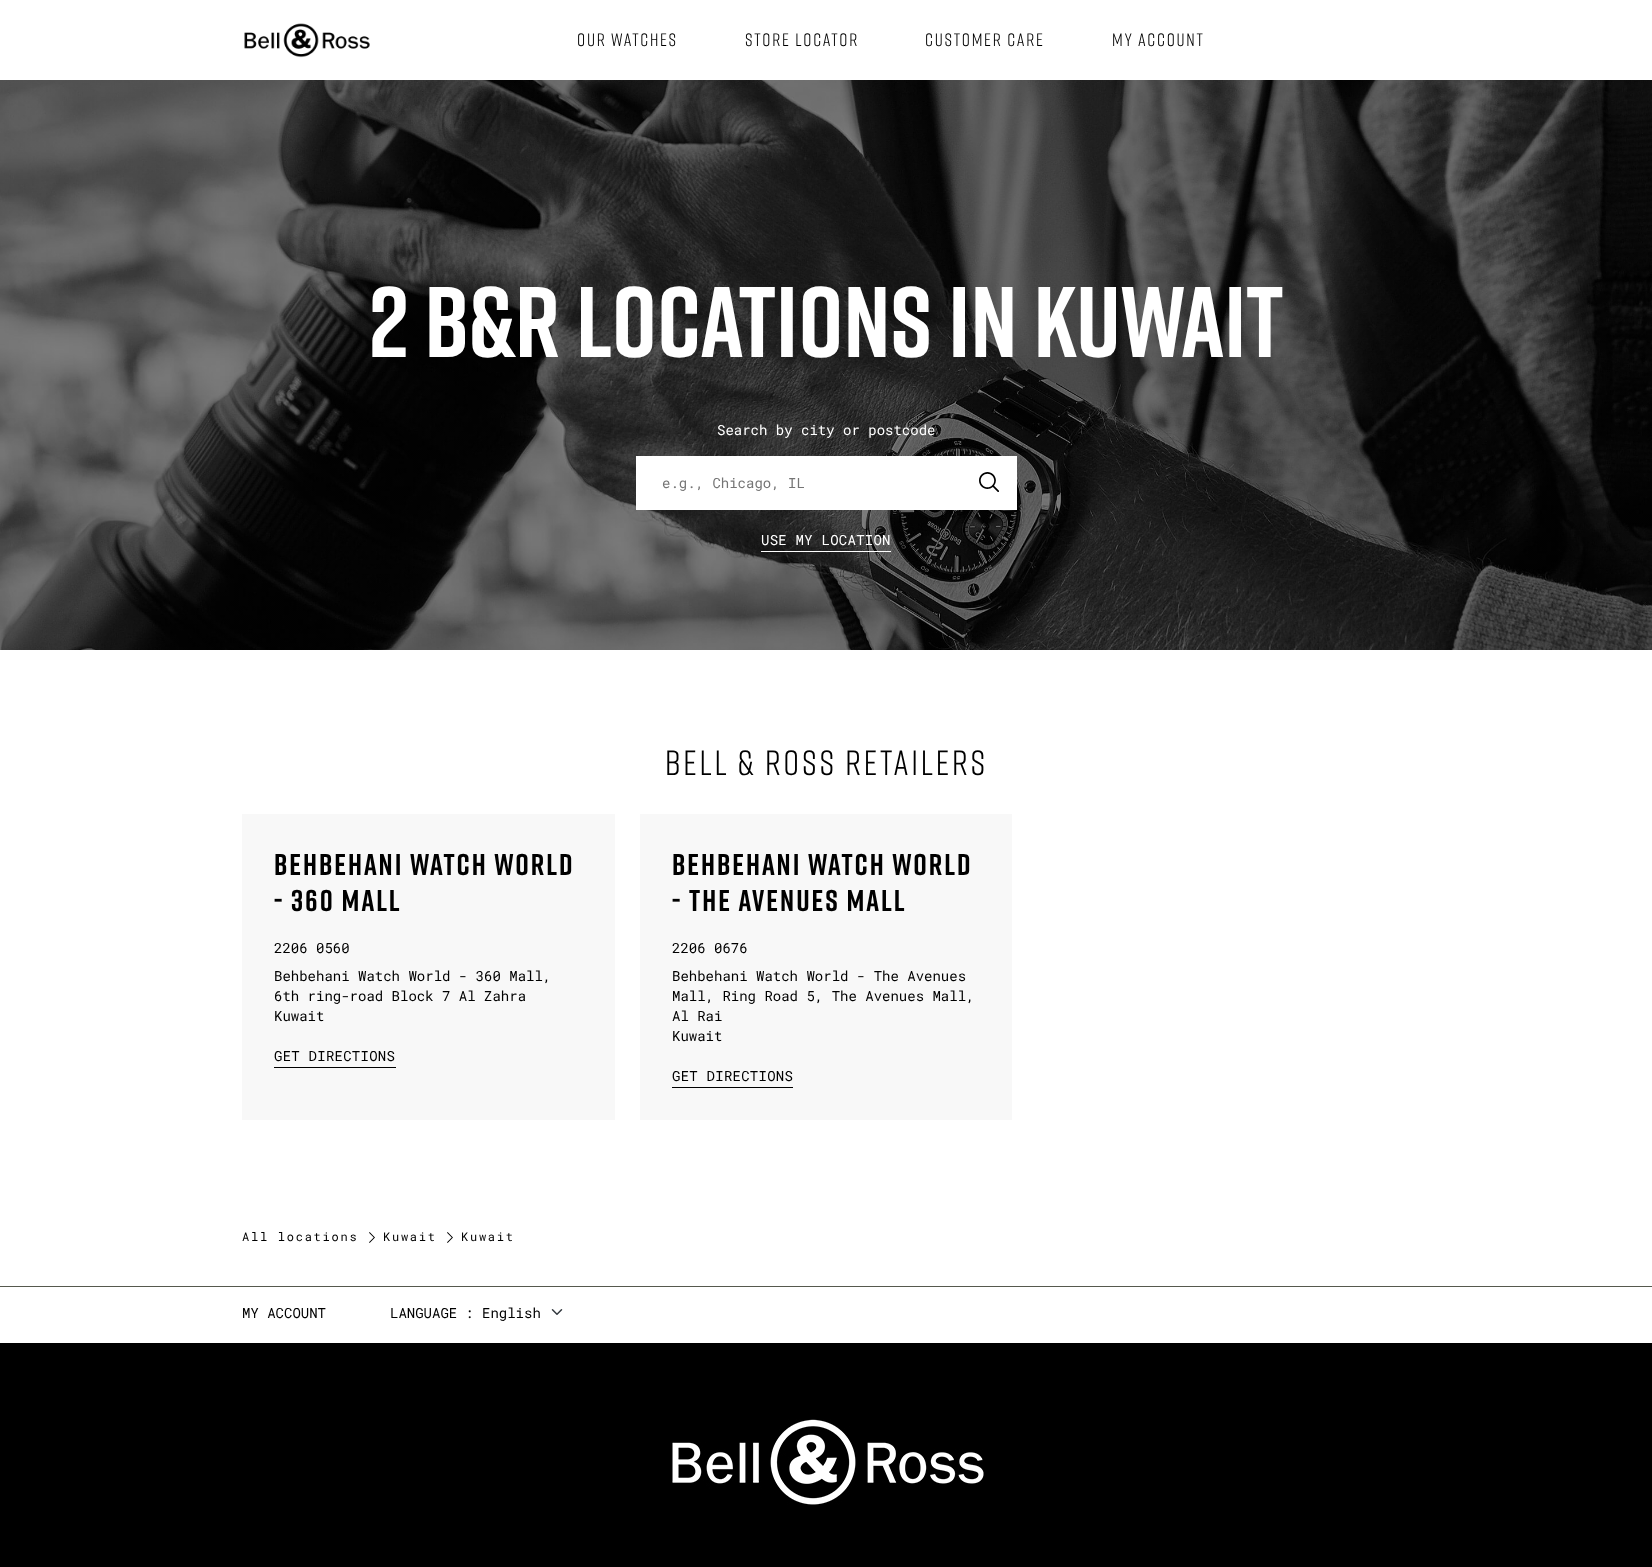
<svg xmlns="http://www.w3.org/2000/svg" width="1652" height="1567">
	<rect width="100%" height="100%" fill="#FFFFFF" />
	<image x="244" y="23" width="126" height="35" href="assets/img1.png" />
	<g font-family="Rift" font-size="18" letter-spacing="1.75" fill="#000000">
		<text x="577" y="46">OUR WATCHES</text>
		<text x="745" y="46">STORE LOCATOR</text>
		<text x="925" y="46">CUSTOMER CARE</text>
		<text x="1112" y="46">MY ACCOUNT</text>
	</g>
	<image x="0" y="80" width="1652" height="570" href="assets/img2.png" />
	<text x="369" y="357" font-family="Rift" font-size="100" font-weight="700" fill="#FFFFFF">2 B&amp;R LOCATIONS IN KUWAIT</text>
	<text x="717" y="435" font-family="Roboto Mono" font-size="14" fill="#FFFFFF">Search by city or postcode</text>
	<rect x="636" y="456" width="381" height="54" fill="#FFFFFF" />
	<text x="662" y="488" font-family="Roboto Mono" font-size="14" fill="#757575">e.g., Chicago, IL</text>
	<image x="979" y="472" width="20" height="20" href="assets/img3.png" />
	<text x="761" y="545" font-family="Roboto Mono" font-size="14" letter-spacing="0.25" fill="#FFFFFF">USE MY LOCATION</text>
	<rect x="761" y="551" width="130" height="1" fill="#FFFFFF" />
	<text x="665" y="775" font-family="Rift" font-size="35" letter-spacing="2.8" fill="#000000">BELL &amp; ROSS RETAILERS</text>
	<rect x="242" y="814" width="373" height="306" fill="#F8F8F8" />
	<g font-family="Rift" font-size="30" font-weight="700" letter-spacing="2" fill="#000000">
		<text x="274" y="875">BEHBEHANI WATCH WORLD</text>
		<text x="274" y="911">- 360 MALL</text>
	</g>
	<g font-family="Roboto Mono" font-size="14" fill="#000000">
		<text x="274" y="953">2206 0560</text>
		<text x="274" y="981">Behbehani Watch World - 360 Mall,</text>
		<text x="274" y="1001">6th ring-road Block 7 Al Zahra</text>
		<text x="274" y="1021">Kuwait</text>
	</g>
	<text x="274" y="1061" font-family="Roboto Mono" font-size="14" letter-spacing="0.25" fill="#000000">GET DIRECTIONS</text>
	<rect x="274" y="1067" width="122" height="1" fill="#000000" />
	<rect x="640" y="814" width="372" height="306" fill="#F8F8F8" />
	<g font-family="Rift" font-size="30" font-weight="700" letter-spacing="2" fill="#000000">
		<text x="672" y="875">BEHBEHANI WATCH WORLD</text>
		<text x="672" y="911">- THE AVENUES MALL</text>
	</g>
	<g font-family="Roboto Mono" font-size="14" fill="#000000">
		<text x="672" y="953">2206 0676</text>
		<text x="672" y="981">Behbehani Watch World - The Avenues</text>
		<text x="672" y="1001">Mall, Ring Road 5, The Avenues Mall,</text>
		<text x="672" y="1021">Al Rai</text>
		<text x="672" y="1041">Kuwait</text>
	</g>
	<text x="672" y="1081" font-family="Roboto Mono" font-size="14" letter-spacing="0.25" fill="#000000">GET DIRECTIONS</text>
	<rect x="672" y="1087" width="121" height="1" fill="#000000" />
	<text x="242" y="1241" font-family="Roboto Mono" font-size="12" letter-spacing="1.75" fill="#000000">All locations</text>
	<image x="369" y="1232" width="6" height="11" href="assets/img4.png" />
	<text x="383" y="1241" font-family="Roboto Mono" font-size="12" letter-spacing="1.75" fill="#000000">Kuwait</text>
	<image x="447" y="1232" width="6" height="11" href="assets/img4.png" />
	<text x="461" y="1241" font-family="Roboto Mono" font-size="12" letter-spacing="1.75" fill="#000000">Kuwait</text>
	<rect x="0" y="1286" width="1652" height="1" fill="#56594E" />
	<g font-family="Roboto Mono" font-size="14" fill="#000000">
		<text x="242" y="1318">MY ACCOUNT</text>
		<text x="390" y="1318">LANGUAGE</text>
		<text x="465" y="1318">:</text>
		<text x="482" y="1318">English</text>
	</g>
	<image x="551" y="1309" width="12" height="6" href="assets/img5.png" />
	<rect x="0" y="1343" width="1652" height="224" fill="#000000" />
	<image x="672" y="1419" width="312" height="86" href="assets/img6.png" />
</svg>
